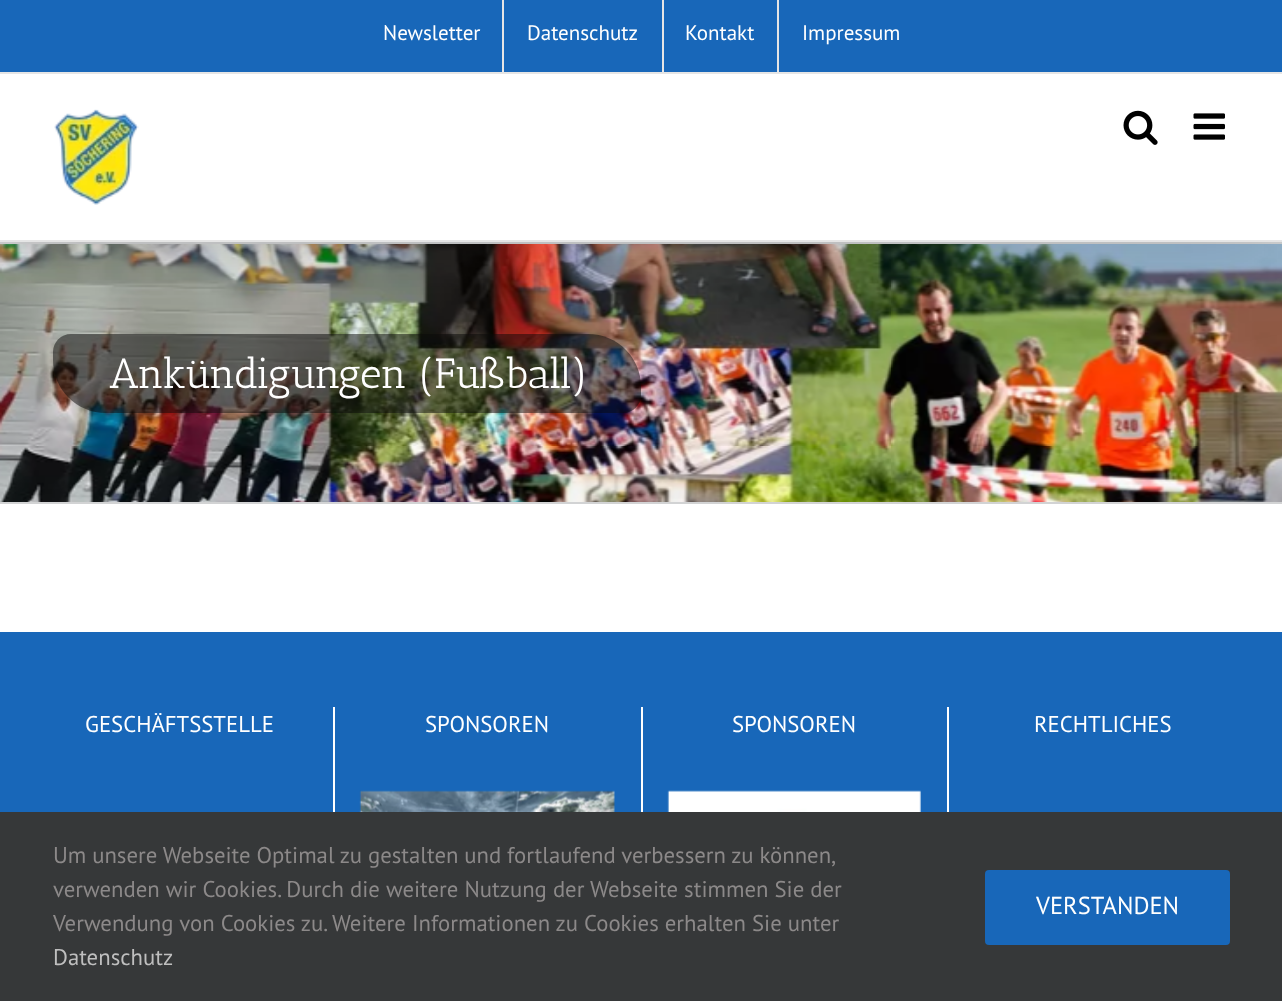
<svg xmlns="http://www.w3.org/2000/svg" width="1282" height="1001">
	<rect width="100%" height="100%" fill="#FFFFFF" />
	<image x="0" y="244" width="1282" height="258" href="assets/img4.png" />
	<rect x="0" y="242" width="1282" height="2" fill="#D2D3D4" />
	<path d="M71 334H588C617.5 334 641 357.5 641 387V395C641 405 633 413 623 413H106C76.5 413 53 389.5 53 360V352C53 342 61 334 71 334Z" fill="#0A0A0A" fill-opacity="0.5" />
	<rect x="4" y="16" width="1275" height="240" fill="#000000" fill-opacity="0.14" filter="blur(44px)" />
	<rect x="0" y="0" width="1282" height="72" fill="#1867B9" />
	<rect x="0" y="72" width="1282" height="2" fill="#E5E5E5" />
	<text x="383" y="40" font-family="PT Sans" font-size="21" fill="#FFFFFF">Newsletter</text>
	<rect x="502" y="0" width="2" height="72" fill="#E5E5E5" />
	<text x="527" y="40" font-family="PT Sans" font-size="21" fill="#FFFFFF">Datenschutz</text>
	<rect x="662" y="0" width="2" height="72" fill="#E5E5E5" />
	<text x="685" y="40" font-family="PT Sans" font-size="21" fill="#FFFFFF">Kontakt</text>
	<rect x="777" y="0" width="2" height="72" fill="#E5E5E5" />
	<text x="802" y="40" font-family="PT Sans" font-size="21" fill="#FFFFFF">Impressum</text>
	<rect x="0" y="74" width="1282" height="166" fill="#FFFFFF" />
	<rect x="0" y="240" width="1282" height="2" fill="#E5E5E5" />
	<image x="54" y="109" width="85" height="96" href="assets/img1.png" />
	<image x="1123" y="110" width="35" height="35" href="assets/img2.png" />
	<image x="1193" y="113" width="32" height="27" href="assets/img3.png" />
	<rect x="0" y="502" width="1282" height="2" fill="#D2D3D4" />
	<text x="109" y="388" font-family="Antic Slab" font-size="42" fill="#FFFFFF">Ankündigungen (Fußball)</text>
	<rect x="0" y="632" width="1282" height="180" fill="#1867B9" />
	<rect x="333" y="707" width="2" height="105" fill="#FFFFFF" />
	<text x="85" y="732" font-family="PT Sans" font-size="22.75" fill="#FFFFFF">GESCHÄFTSSTELLE</text>
	<rect x="641" y="707" width="2" height="105" fill="#FFFFFF" />
	<text x="425" y="732" font-family="PT Sans" font-size="22.75" fill="#FFFFFF">SPONSOREN</text>
	<image x="359" y="790" width="256" height="22" href="assets/img5.png" />
	<rect x="947" y="707" width="2" height="105" fill="#FFFFFF" />
	<text x="732" y="732" font-family="PT Sans" font-size="22.75" fill="#FFFFFF">SPONSOREN</text>
	<image x="667" y="790" width="254" height="22" href="assets/img6.png" />
	<text x="1034" y="732" font-family="PT Sans" font-size="22.75" fill="#FFFFFF">RECHTLICHES</text>
	<rect x="0" y="812" width="1282" height="189" fill="#363839" />
	<g font-family="PT Sans" font-size="22.75" fill="#8C8989">
		<text x="53" y="863" word-spacing="-0.25">Um unsere Webseite Optimal zu gestalten und fortlaufend verbessern zu können,</text>
		<text x="53" y="897">verwenden wir Cookies. Durch die weitere Nutzung der Webseite stimmen Sie der</text>
		<text x="53" y="931">Verwendung von Cookies zu. Weitere Informationen zu Cookies erhalten Sie unter</text>
	</g>
	<text x="53" y="965" font-family="PT Sans" font-size="22.75" fill="#BFBFBF">Datenschutz</text>
	<rect x="985" y="870" width="245" height="75" rx="4" fill="#1867B9" />
	<text x="1036" y="914" font-family="PT Sans" font-size="24.5" fill="#FFFFFF">VERSTANDEN</text>
</svg>
